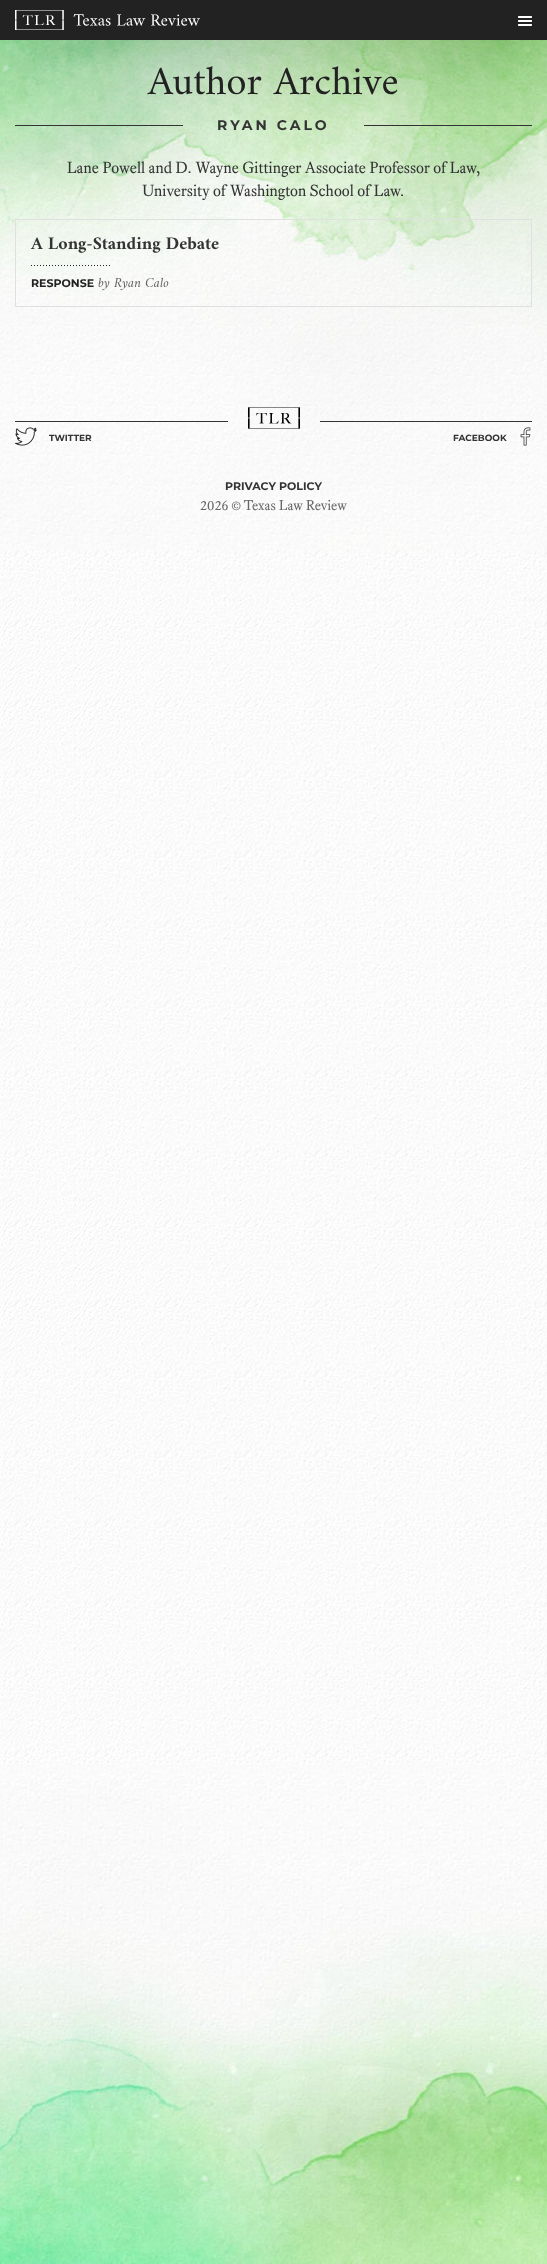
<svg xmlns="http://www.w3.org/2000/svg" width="547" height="2264">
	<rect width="100%" height="100%" fill="#FFFFFF" />
	<image x="0" y="40" width="547" height="2224" href="assets/img1.png" />
	<rect x="15" y="125" width="168" height="1" fill="#333333" />
	<rect x="364" y="125" width="168" height="1" fill="#333333" />
	<rect x="0" y="0" width="547" height="40" fill="#000000" fill-opacity="0.25" filter="blur(40px)" />
	<rect x="0" y="0" width="547" height="40" fill="#222222" />
	<image x="15" y="10" width="185" height="20" href="assets/img2.png" />
	<image x="518" y="16" width="14" height="10" href="assets/img3.png" />
	<text x="148" y="94" font-family="Amiri" font-size="41" fill="#222222">Author Archive</text>
	<text x="217" y="130" font-family="Montserrat" font-size="14" font-weight="700" letter-spacing="3" fill="#333333">RYAN CALO</text>
	<g font-family="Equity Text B" font-size="16" fill="#333333">
		<text x="67" y="173">Lane Powell and D. Wayne Gittinger Associate Professor of Law,</text>
		<text x="142" y="196">University of Washington School of Law.</text>
	</g>
	<rect x="15.5" y="219.5" width="516" height="87" fill="none" stroke="#E0E0E0" />
	<text x="31" y="249" font-family="Amiri" font-size="18" font-weight="700" fill="#333333">A Long-Standing Debate</text>
	<image x="31" y="265" width="79" height="1" href="assets/img4.png" />
	<text x="31" y="287" font-family="Montserrat" font-size="11" font-weight="700" fill="#222222">RESPONSE</text>
	<text x="98" y="287" font-family="Amiri" font-size="14" font-style="italic" fill="#666666">by Ryan Calo</text>
	<rect x="15" y="421" width="213" height="1" fill="#333333" />
	<image x="248" y="407" width="52" height="22" href="assets/img5.png" />
	<rect x="320" y="421" width="212" height="1" fill="#333333" />
	<image x="15" y="427" width="22" height="19" href="assets/img6.png" />
	<g font-family="Montserrat" font-size="9" font-weight="700" fill="#333333">
		<text x="49" y="441">TWITTER</text>
		<text x="453" y="441">FACEBOOK</text>
	</g>
	<image x="520" y="427" width="11" height="19" href="assets/img7.png" />
	<text x="225" y="490" font-family="Montserrat" font-size="11" font-weight="700" fill="#333333">PRIVACY POLICY</text>
	<text x="200" y="510" font-family="Equity Text B" font-size="14" fill="#666666">2026 © Texas Law Review</text>
</svg>
